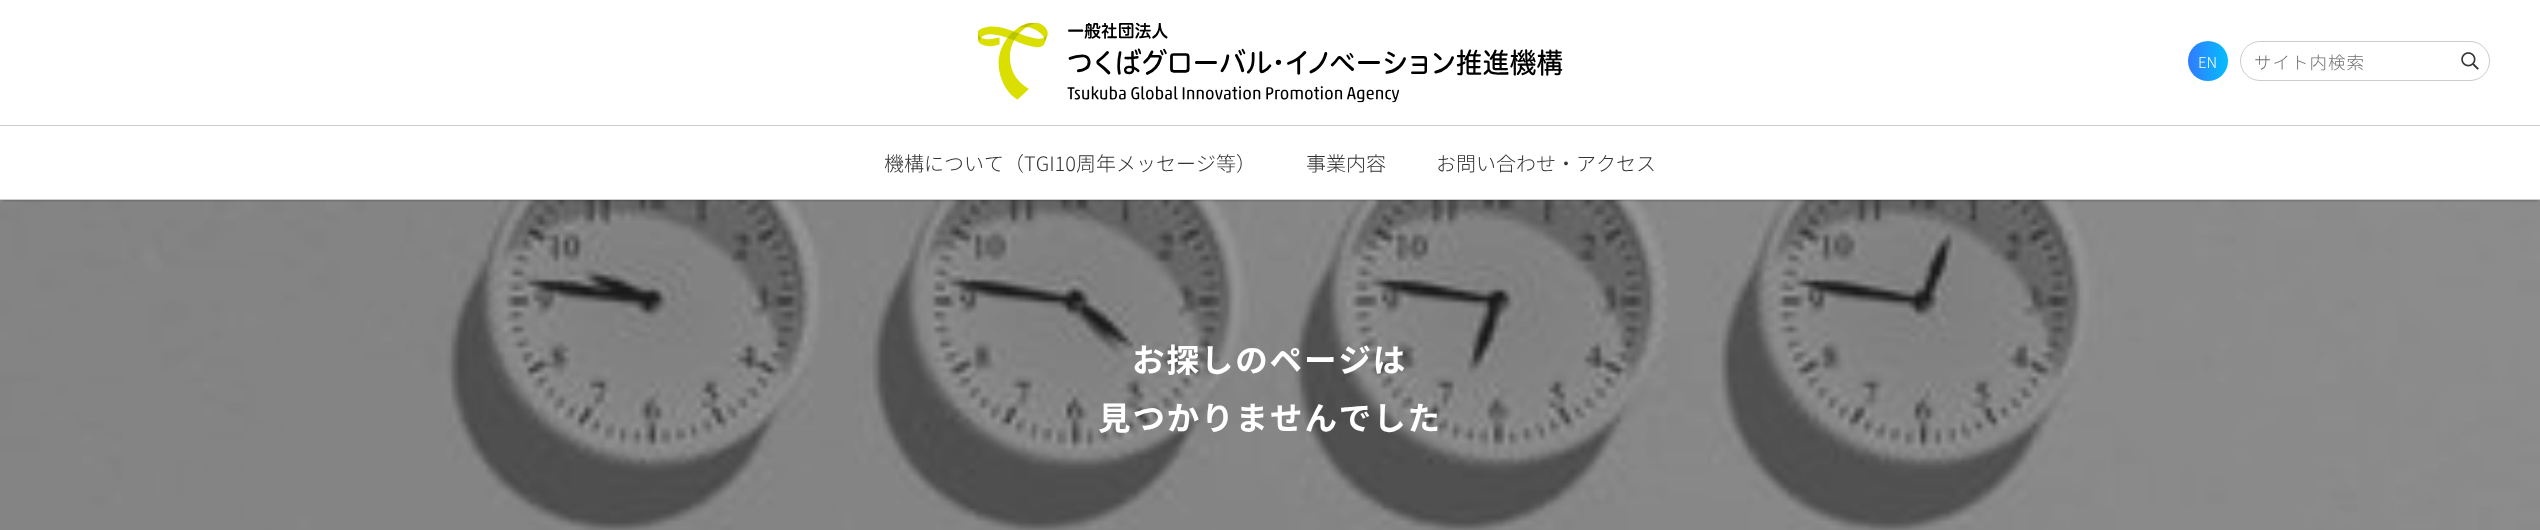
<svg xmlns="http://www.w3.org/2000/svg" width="2540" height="530">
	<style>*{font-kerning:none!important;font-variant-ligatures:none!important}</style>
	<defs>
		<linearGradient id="g1" gradientUnits="userSpaceOnUse" x1="2188" y1="61" x2="2228" y2="61"><stop offset="0" stop-color="#317BFF" /><stop offset="1" stop-color="#04BEFE" /></linearGradient>
		<clipPath id="clip1"><rect x="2" y="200" width="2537" height="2" /></clipPath>
	</defs>
	<rect width="100%" height="100%" fill="#FFFFFF" />
	<image x="978" y="23" width="585" height="80" href="assets/img1.png" />
	<circle cx="2208" cy="61" r="20" fill="url(#g1)" />
	<text x="2198" y="68" font-family="Noto Sans JP" font-size="15" font-weight="300" fill="#FFFFFF">EN</text>
	<rect x="2240.5" y="41.5" width="249" height="39" rx="19.5" fill="none" stroke="#CCCCCC" />
	<text x="2254" y="69" font-family="Noto Sans JP" font-size="17.5" font-weight="300" letter-spacing="1" fill="#707070">サイト内検索</text>
	<image x="2461" y="52" width="18" height="18" href="assets/img2.png" />
	<image x="0" y="200" width="2540" height="330" href="assets/img3.png" />
	<g clip-path="url(#clip1)">
		<rect x="3" y="131" width="2535" height="70" fill="#000000" fill-opacity="0.2" filter="blur(1px)" />
	</g>
	<rect x="0" y="125" width="2540" height="1" fill="#CCCCCC" />
	<rect x="0" y="199" width="2540" height="1" fill="#CCCCCC" />
	<g font-family="Noto Sans JP" font-size="20" font-weight="300" fill="#333333">
		<text x="884" y="171">機構について（TGI10周年メッセージ等）</text>
		<text x="1306" y="171">事業内容</text>
		<text x="1436" y="171">お問い合わせ・アクセス</text>
	</g>
	<g font-family="Noto Sans JP" font-size="32.5" font-weight="700" letter-spacing="1.9" fill="#FFFFFF">
		<text x="1132" y="372">お探しのページは</text>
		<text x="1098" y="430">見つかりませんでした</text>
	</g>
</svg>
